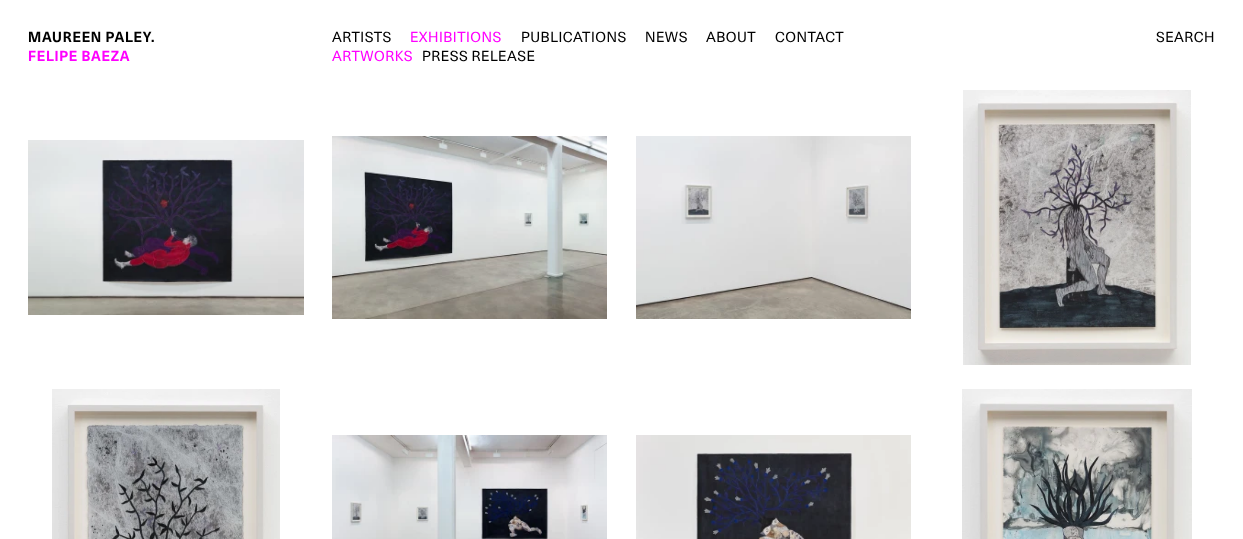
<svg xmlns="http://www.w3.org/2000/svg" width="1243" height="539">
	<rect width="100%" height="100%" fill="#FFFFFF" />
	<text x="28" y="42" font-family="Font" font-size="14" font-weight="700" letter-spacing="0.75" fill="#000000">MAUREEN PALEY.</text>
	<text x="332" y="42" font-family="Font" font-size="14" letter-spacing="0.5" fill="#000000">ARTISTS</text>
	<text x="410" y="42" font-family="Font" font-size="14" letter-spacing="0.5" fill="#FF00FF">EXHIBITIONS</text>
	<g font-family="Font" font-size="14" letter-spacing="0.5" fill="#000000">
		<text x="521" y="42">PUBLICATIONS</text>
		<text x="645" y="42">NEWS</text>
		<text x="706" y="42">ABOUT</text>
		<text x="775" y="42">CONTACT</text>
		<text x="1156" y="42">SEARCH</text>
	</g>
	<text x="28" y="61" font-family="Font" font-size="14" font-weight="700" letter-spacing="0.75" fill="#FF00FF">FELIPE BAEZA</text>
	<text x="332" y="61" font-family="Font" font-size="14" letter-spacing="0.5" fill="#FF00FF">ARTWORKS</text>
	<text x="422" y="61" font-family="Font" font-size="14" letter-spacing="0.5" fill="#000000">PRESS RELEASE</text>
	<image x="28" y="140" width="276" height="175" href="assets/img1.png" />
	<image x="332" y="136" width="275" height="183" href="assets/img2.png" />
	<image x="636" y="136" width="275" height="183" href="assets/img3.png" />
	<image x="963" y="90" width="228" height="275" href="assets/img4.png" />
	<image x="52" y="389" width="228" height="150" href="assets/img5.png" />
	<image x="332" y="435" width="275" height="104" href="assets/img6.png" />
	<image x="636" y="435" width="275" height="104" href="assets/img7.png" />
	<image x="962" y="389" width="230" height="150" href="assets/img8.png" />
</svg>
